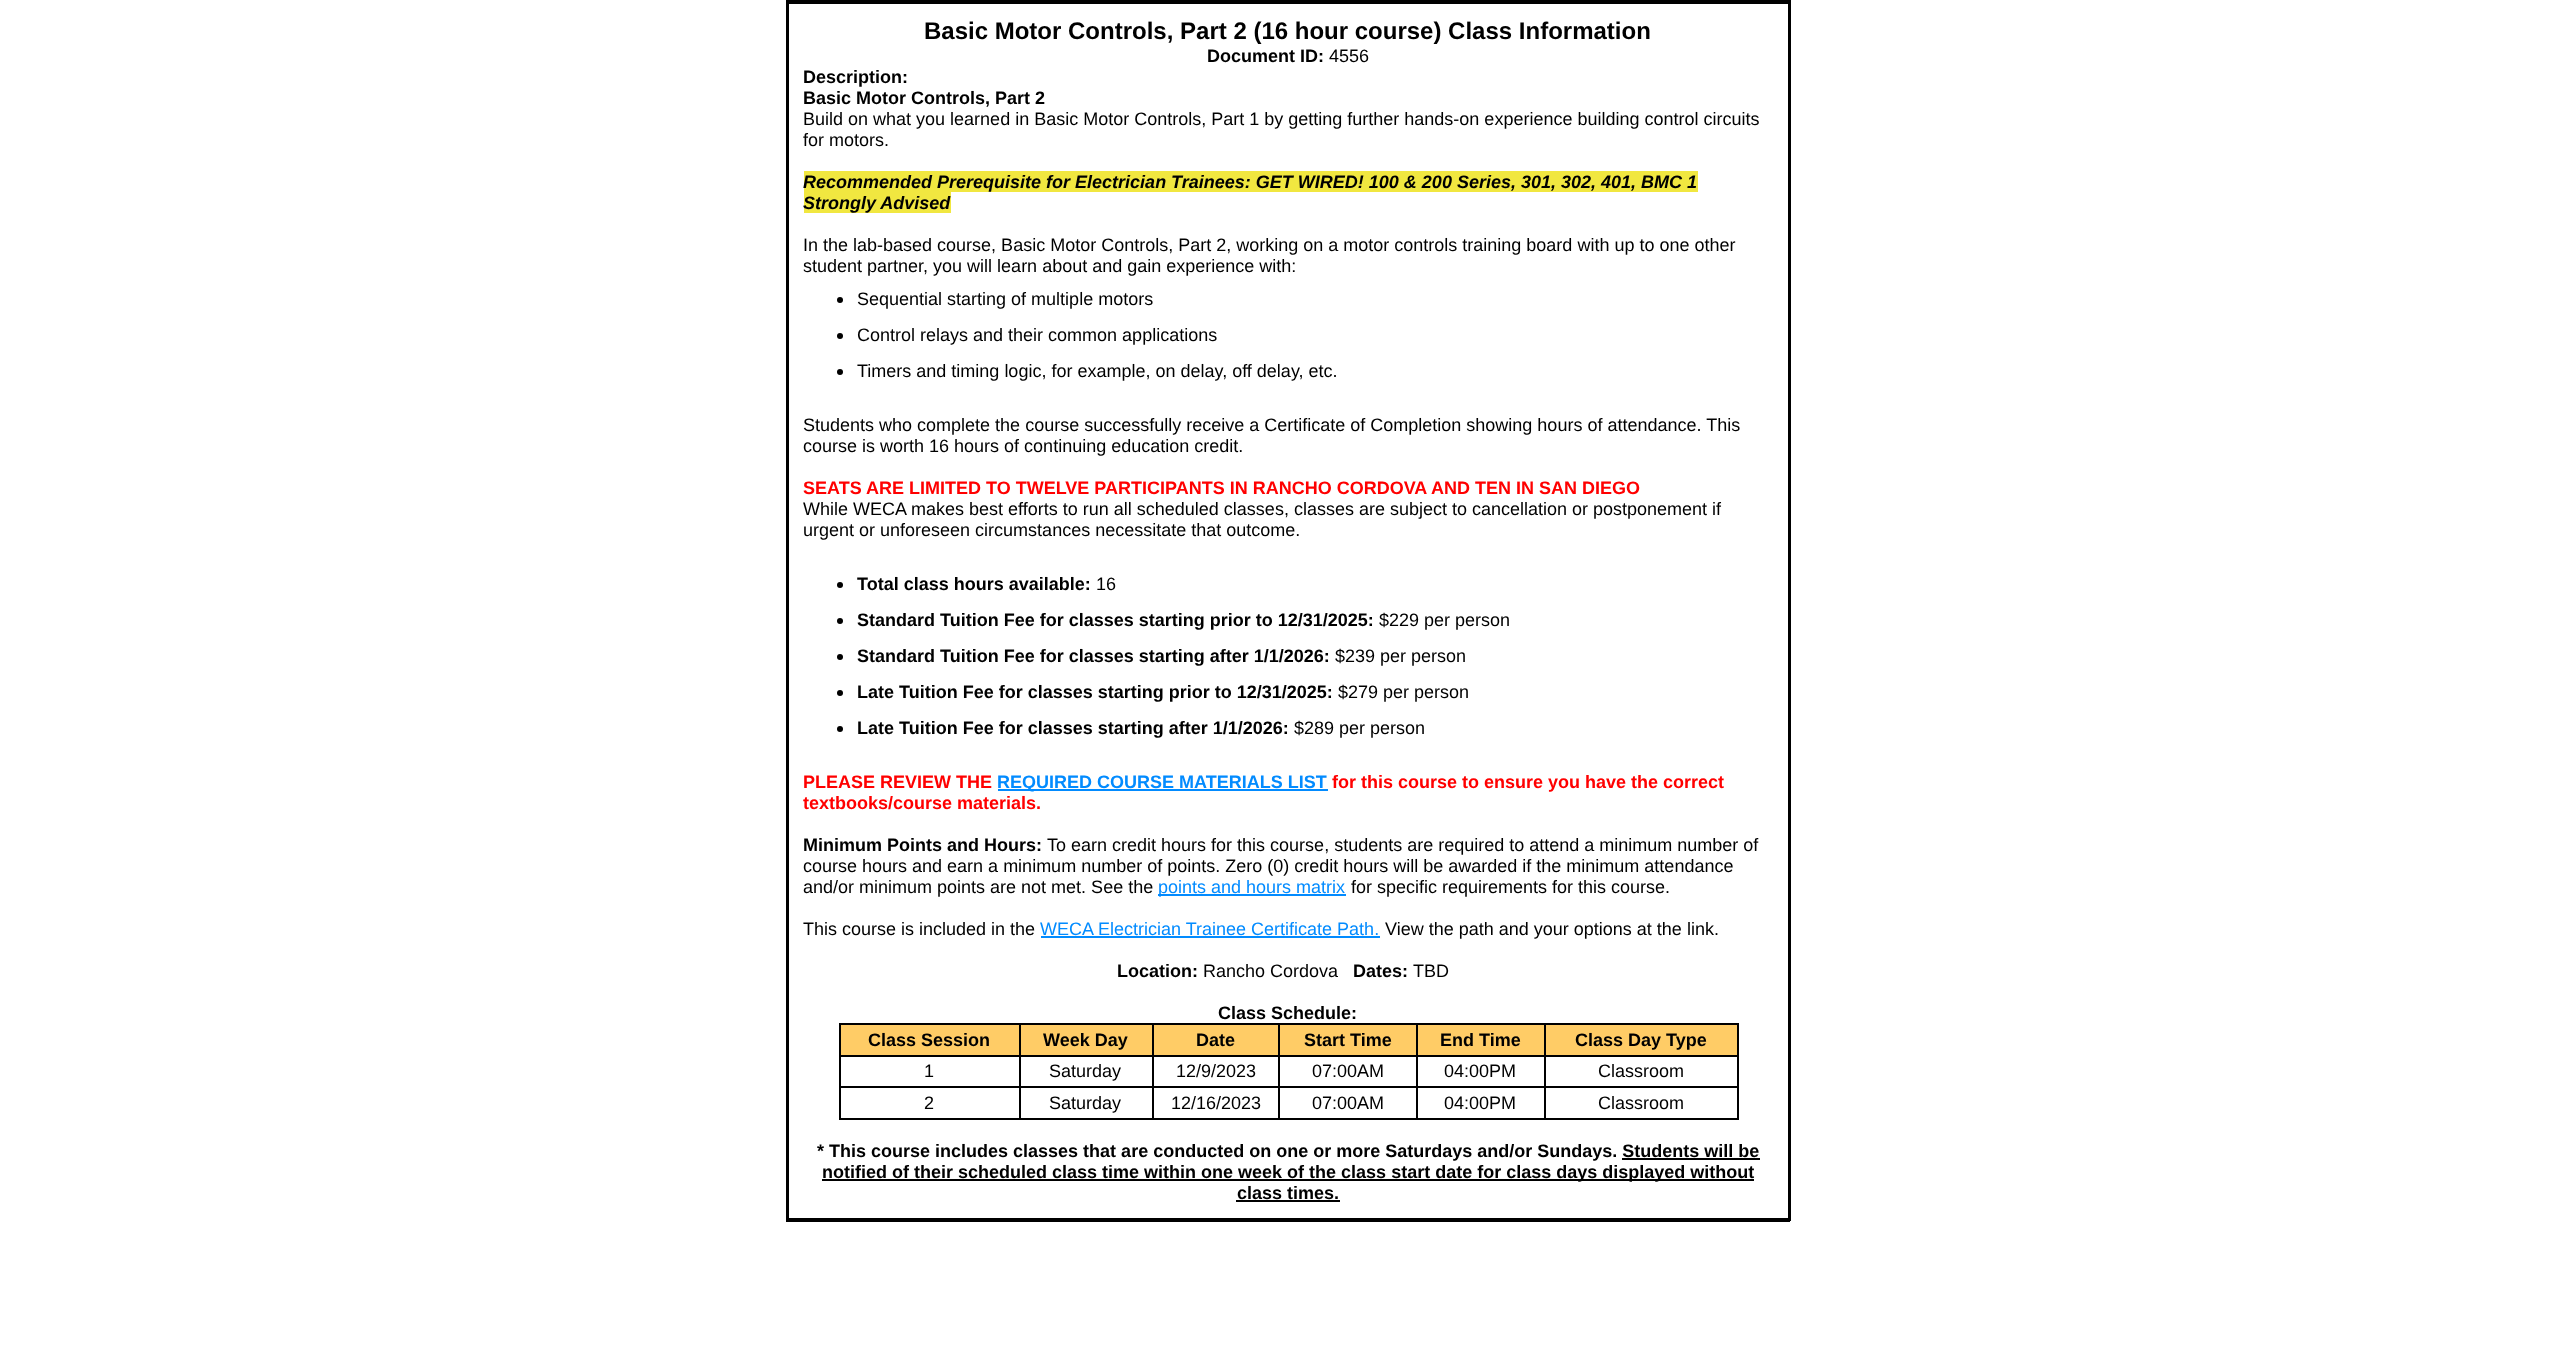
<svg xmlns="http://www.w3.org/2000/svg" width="2575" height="1354">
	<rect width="100%" height="100%" fill="#FFFFFF" />
	<rect x="786" y="0" width="1005" height="3" fill="#000000" />
	<rect x="786" y="3" width="1004" height="1" fill="#000000" />
	<rect x="1788" y="0" width="3" height="1221" fill="#000000" />
	<rect x="786" y="1218" width="1005" height="3" fill="#000000" />
	<rect x="786" y="0" width="3" height="1221" fill="#000000" />
	<rect x="786" y="1221" width="1004" height="1" fill="#000000" />
	<text x="924" y="39" font-family="Liberation Sans" font-size="24" font-weight="700" fill="#000000">Basic Motor Controls, Part 2 (16 hour course) Class Information</text>
	<text x="1207" y="62" font-family="Liberation Sans" font-size="18" font-weight="700" fill="#000000">Document ID:</text>
	<text x="1329" y="62" font-family="Liberation Sans" font-size="18" fill="#000000">4556</text>
	<g font-family="Liberation Sans" font-size="18" font-weight="700" fill="#000000">
		<text x="803" y="83">Description:</text>
		<text x="803" y="104">Basic Motor Controls, Part 2</text>
	</g>
	<g font-family="Liberation Sans" font-size="18" fill="#000000">
		<text x="803" y="125">Build on what you learned in Basic Motor Controls, Part 1 by getting further hands-on experience building control circuits</text>
		<text x="803" y="146">for motors.</text>
	</g>
	<rect x="804" y="171" width="894" height="21" fill="#F1E740" />
	<text x="803" y="188" font-family="Liberation Sans" font-size="18" font-weight="700" font-style="italic" fill="#000000">Recommended Prerequisite for Electrician Trainees: GET WIRED! 100 &amp; 200 Series, 301, 302, 401, BMC 1</text>
	<rect x="804" y="192" width="147" height="21" fill="#F1E740" />
	<text x="803" y="209" font-family="Liberation Sans" font-size="18" font-weight="700" font-style="italic" fill="#000000">Strongly Advised</text>
	<g font-family="Liberation Sans" font-size="18" fill="#000000">
		<text x="803" y="251">In the lab-based course, Basic Motor Controls, Part 2, working on a motor controls training board with up to one other</text>
		<text x="803" y="272">student partner, you will learn about and gain experience with:</text>
	</g>
	<circle cx="840" cy="300" r="3" fill="#000000" />
	<text x="857" y="305" font-family="Liberation Sans" font-size="18" fill="#000000">Sequential starting of multiple motors</text>
	<circle cx="840" cy="336" r="3" fill="#000000" />
	<text x="857" y="341" font-family="Liberation Sans" font-size="18" fill="#000000">Control relays and their common applications</text>
	<circle cx="840" cy="372" r="3" fill="#000000" />
	<g font-family="Liberation Sans" font-size="18" fill="#000000">
		<text x="857" y="377">Timers and timing logic, for example, on delay, off delay, etc.</text>
		<text x="803" y="431">Students who complete the course successfully receive a Certificate of Completion showing hours of attendance. This</text>
		<text x="803" y="452">course is worth 16 hours of continuing education credit.</text>
	</g>
	<text x="803" y="494" font-family="Liberation Sans" font-size="18" font-weight="700" fill="#FF0000">SEATS ARE LIMITED TO TWELVE PARTICIPANTS IN RANCHO CORDOVA AND TEN IN SAN DIEGO</text>
	<g font-family="Liberation Sans" font-size="18" fill="#000000">
		<text x="803" y="515">While WECA makes best efforts to run all scheduled classes, classes are subject to cancellation or postponement if</text>
		<text x="803" y="536">urgent or unforeseen circumstances necessitate that outcome.</text>
	</g>
	<circle cx="840" cy="585" r="3" fill="#000000" />
	<text x="857" y="590" font-family="Liberation Sans" font-size="18" font-weight="700" fill="#000000">Total class hours available:</text>
	<text x="1096" y="590" font-family="Liberation Sans" font-size="18" fill="#000000">16</text>
	<circle cx="840" cy="621" r="3" fill="#000000" />
	<text x="857" y="626" font-family="Liberation Sans" font-size="18" font-weight="700" fill="#000000">Standard Tuition Fee for classes starting prior to 12/31/2025:</text>
	<text x="1379" y="626" font-family="Liberation Sans" font-size="18" fill="#000000">$229 per person</text>
	<circle cx="840" cy="657" r="3" fill="#000000" />
	<text x="857" y="662" font-family="Liberation Sans" font-size="18" font-weight="700" fill="#000000">Standard Tuition Fee for classes starting after 1/1/2026:</text>
	<text x="1335" y="662" font-family="Liberation Sans" font-size="18" fill="#000000">$239 per person</text>
	<circle cx="840" cy="693" r="3" fill="#000000" />
	<text x="857" y="698" font-family="Liberation Sans" font-size="18" font-weight="700" fill="#000000">Late Tuition Fee for classes starting prior to 12/31/2025:</text>
	<text x="1338" y="698" font-family="Liberation Sans" font-size="18" fill="#000000">$279 per person</text>
	<circle cx="840" cy="729" r="3" fill="#000000" />
	<text x="857" y="734" font-family="Liberation Sans" font-size="18" font-weight="700" fill="#000000">Late Tuition Fee for classes starting after 1/1/2026:</text>
	<text x="1294" y="734" font-family="Liberation Sans" font-size="18" fill="#000000">$289 per person</text>
	<text x="803" y="788" font-family="Liberation Sans" font-size="18" font-weight="700" fill="#FF0000">PLEASE REVIEW THE</text>
	<rect x="998" y="789" width="330" height="2" fill="#028BFF" />
	<text x="997" y="788" font-family="Liberation Sans" font-size="18" font-weight="700" fill="#028BFF">REQUIRED COURSE MATERIALS LIST</text>
	<g font-family="Liberation Sans" font-size="18" font-weight="700" fill="#FF0000">
		<text x="1332" y="788">for this course to ensure you have the correct</text>
		<text x="803" y="809">textbooks/course materials.</text>
	</g>
	<text x="803" y="851" font-family="Liberation Sans" font-size="18" font-weight="700" fill="#000000">Minimum Points and Hours:</text>
	<g font-family="Liberation Sans" font-size="18" fill="#000000">
		<text x="1047" y="851">To earn credit hours for this course, students are required to attend a minimum number of</text>
		<text x="803" y="872">course hours and earn a minimum number of points. Zero (0) credit hours will be awarded if the minimum attendance</text>
		<text x="803" y="893">and/or minimum points are not met. See the</text>
	</g>
	<rect x="1158" y="894" width="188" height="2" fill="#028BFF" />
	<text x="1158" y="893" font-family="Liberation Sans" font-size="18" fill="#028BFF">points and hours matrix</text>
	<g font-family="Liberation Sans" font-size="18" fill="#000000">
		<text x="1351" y="893">for specific requirements for this course.</text>
		<text x="803" y="935">This course is included in the</text>
	</g>
	<text x="1040" y="935" font-family="Liberation Sans" font-size="18" fill="#028BFF">WECA Electrician Trainee Certificate Path.</text>
	<rect x="1041" y="936" width="339" height="2" fill="#028BFF" />
	<text x="1385" y="935" font-family="Liberation Sans" font-size="18" fill="#000000">View the path and your options at the link.</text>
	<text x="1117" y="977" font-family="Liberation Sans" font-size="18" font-weight="700" fill="#000000">Location:</text>
	<text x="1203" y="977" font-family="Liberation Sans" font-size="18" fill="#000000">Rancho Cordova</text>
	<text x="1353" y="977" font-family="Liberation Sans" font-size="18" font-weight="700" fill="#000000">Dates:</text>
	<text x="1413" y="977" font-family="Liberation Sans" font-size="18" fill="#000000">TBD</text>
	<text x="1218" y="1019" font-family="Liberation Sans" font-size="18" font-weight="700" fill="#000000">Class Schedule:</text>
	<rect x="839" y="1023" width="900" height="2" fill="#000000" />
	<rect x="1737" y="1023" width="2" height="96" fill="#000000" />
	<rect x="839" y="1118" width="900" height="2" fill="#000000" />
	<rect x="839" y="1023" width="2" height="96" fill="#000000" />
	<rect x="841" y="1025" width="896" height="30" fill="#FFCC66" />
	<text x="868" y="1046" font-family="Liberation Sans" font-size="18" font-weight="700" fill="#000000">Class Session</text>
	<rect x="1544" y="1055" width="195" height="2" fill="#000000" />
	<rect x="1544" y="1086" width="195" height="2" fill="#000000" />
	<rect x="1544" y="1086" width="2" height="33" fill="#000000" />
	<rect x="1416" y="1086" width="129" height="2" fill="#000000" />
	<rect x="1544" y="1055" width="2" height="33" fill="#000000" />
	<rect x="1416" y="1055" width="129" height="2" fill="#000000" />
	<rect x="1416" y="1086" width="2" height="33" fill="#000000" />
	<rect x="1278" y="1086" width="140" height="2" fill="#000000" />
	<rect x="1416" y="1055" width="2" height="33" fill="#000000" />
	<rect x="1278" y="1055" width="140" height="2" fill="#000000" />
	<rect x="1278" y="1086" width="2" height="33" fill="#000000" />
	<rect x="1152" y="1086" width="128" height="2" fill="#000000" />
	<rect x="1278" y="1055" width="2" height="33" fill="#000000" />
	<rect x="1152" y="1055" width="128" height="2" fill="#000000" />
	<rect x="1152" y="1086" width="2" height="33" fill="#000000" />
	<rect x="1019" y="1086" width="135" height="2" fill="#000000" />
	<rect x="1152" y="1055" width="2" height="33" fill="#000000" />
	<rect x="1019" y="1055" width="135" height="2" fill="#000000" />
	<rect x="1019" y="1086" width="2" height="33" fill="#000000" />
	<rect x="839" y="1086" width="181" height="2" fill="#000000" />
	<rect x="1019" y="1055" width="2" height="33" fill="#000000" />
	<rect x="839" y="1055" width="181" height="2" fill="#000000" />
	<rect x="1019" y="1023" width="2" height="33" fill="#000000" />
	<text x="1043" y="1046" font-family="Liberation Sans" font-size="18" font-weight="700" fill="#000000">Week Day</text>
	<rect x="1152" y="1023" width="2" height="33" fill="#000000" />
	<text x="1196" y="1046" font-family="Liberation Sans" font-size="18" font-weight="700" fill="#000000">Date</text>
	<rect x="1278" y="1023" width="2" height="33" fill="#000000" />
	<text x="1304" y="1046" font-family="Liberation Sans" font-size="18" font-weight="700" fill="#000000">Start Time</text>
	<rect x="1416" y="1023" width="2" height="33" fill="#000000" />
	<text x="1440" y="1046" font-family="Liberation Sans" font-size="18" font-weight="700" fill="#000000">End Time</text>
	<rect x="1544" y="1023" width="2" height="33" fill="#000000" />
	<text x="1575" y="1046" font-family="Liberation Sans" font-size="18" font-weight="700" fill="#000000">Class Day Type</text>
	<g font-family="Liberation Sans" font-size="18" fill="#000000">
		<text x="924" y="1077">1</text>
		<text x="1049" y="1077">Saturday</text>
		<text x="1176" y="1077">12/9/2023</text>
		<text x="1312" y="1077">07:00AM</text>
		<text x="1444" y="1077">04:00PM</text>
		<text x="1598" y="1077">Classroom</text>
		<text x="924" y="1109">2</text>
		<text x="1049" y="1109">Saturday</text>
		<text x="1171" y="1109">12/16/2023</text>
		<text x="1312" y="1109">07:00AM</text>
		<text x="1444" y="1109">04:00PM</text>
		<text x="1598" y="1109">Classroom</text>
	</g>
	<text x="817" y="1157" font-family="Liberation Sans" font-size="18" font-weight="700" fill="#000000">* This course includes classes that are conducted on one or more Saturdays and/or Sundays. Students will be</text>
	<rect x="1622" y="1158" width="138" height="2" fill="#000000" />
	<rect x="822" y="1179" width="932" height="2" fill="#000000" />
	<g font-family="Liberation Sans" font-size="18" font-weight="700" fill="#000000">
		<text x="822" y="1178">notified of their scheduled class time within one week of the class start date for class days displayed without</text>
		<text x="1237" y="1199">class times.</text>
	</g>
	<rect x="1236" y="1200" width="104" height="2" fill="#000000" />
</svg>
